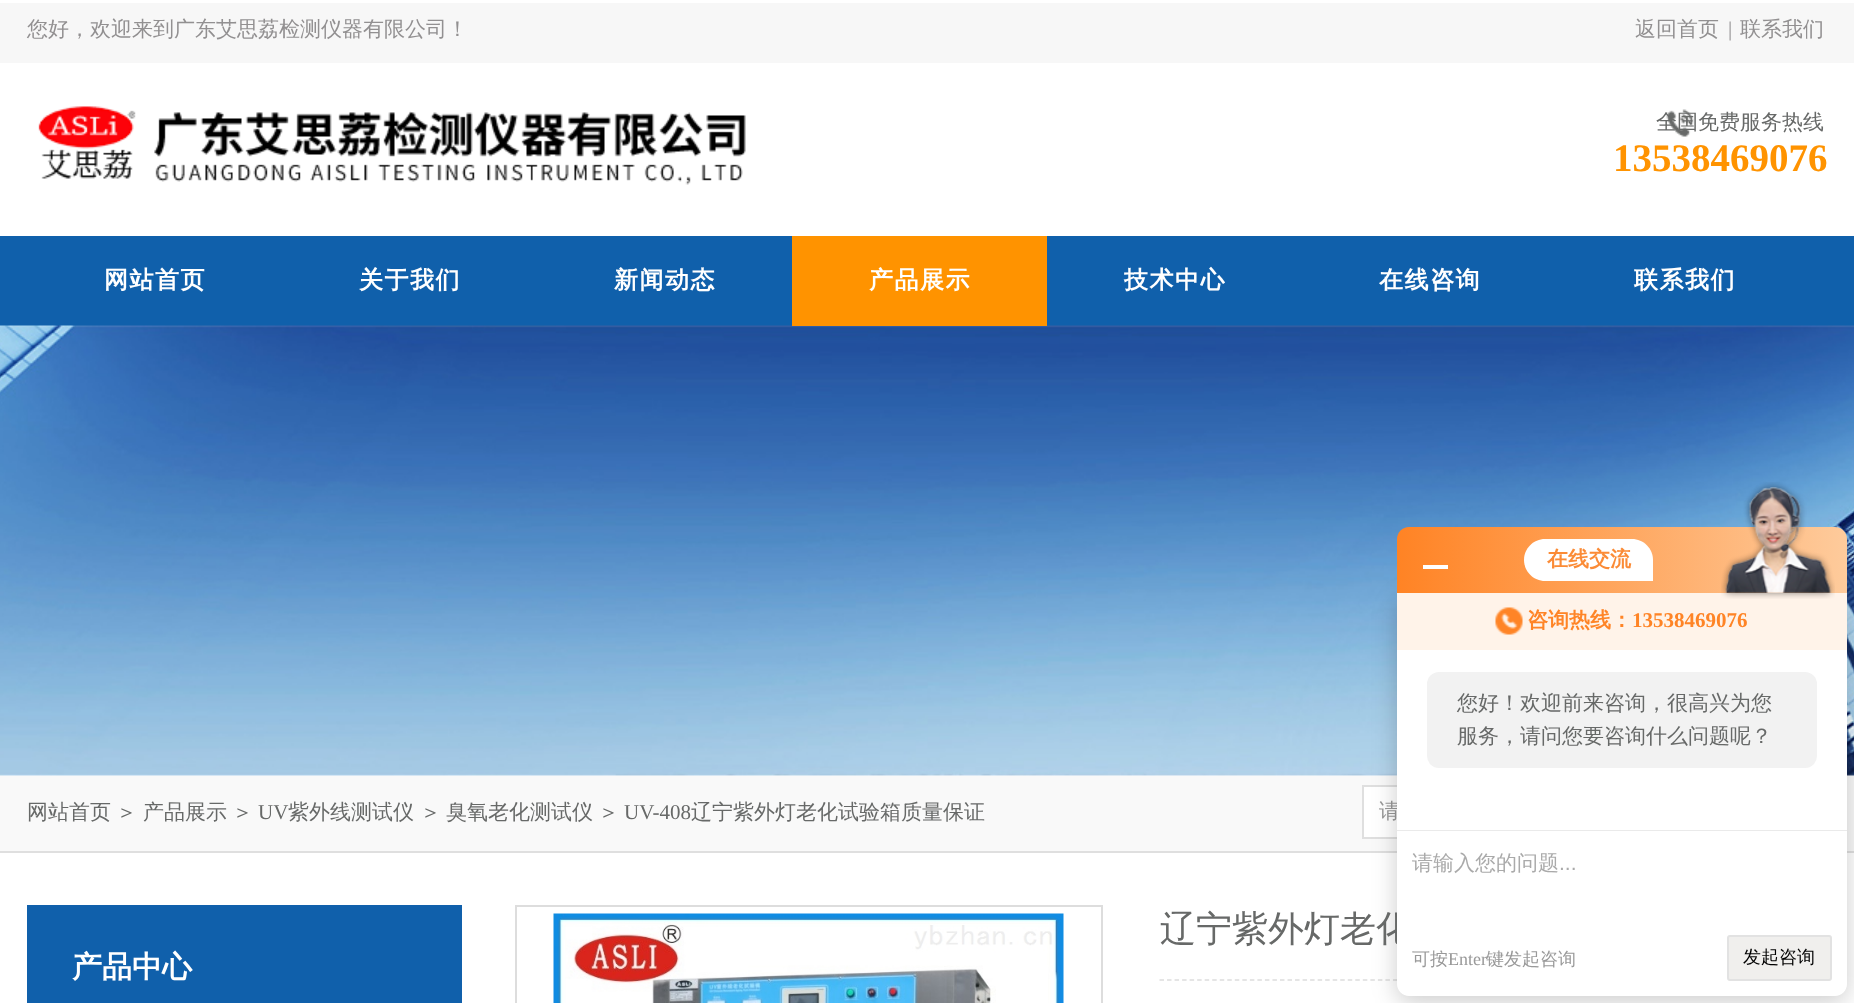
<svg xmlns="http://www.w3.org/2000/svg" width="1854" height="1003">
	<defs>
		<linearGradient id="g1" gradientUnits="userSpaceOnUse" x1="1397" y1="560" x2="1847" y2="560"><stop offset="0" stop-color="#FF8324" /><stop offset="1" stop-color="#FECB9C" /></linearGradient>
	</defs>
	<rect width="100%" height="100%" fill="#FFFFFF" />
	<rect x="0" y="3" width="1854" height="60" fill="#F7F7F7" />
	<g font-family="WenQuanYi Zen Hei" font-size="21" font-weight="500" fill="#929091">
		<text x="27" y="36">您好，欢迎来到广东艾思荔检测仪器有限公司！</text>
		<text x="1635" y="36">返回首页</text>
	</g>
	<text x="1728" y="36" font-family="Liberation Serif" font-size="21" fill="#929091">|</text>
	<text x="1740" y="36" font-family="WenQuanYi Zen Hei" font-size="21" font-weight="500" fill="#929091">联系我们</text>
	<image x="38" y="106" width="708" height="79" href="assets/img1.png" />
	<image x="1666" y="109" width="28" height="28" href="assets/img2.png" />
	<text x="1656" y="129" font-family="WenQuanYi Zen Hei" font-size="21" font-weight="500" fill="#676968">全国免费服务热线</text>
	<text x="1613" y="171" font-family="Liberation Serif" font-size="39" font-weight="700" fill="#FF9300">13538469076</text>
	<rect x="0" y="236" width="1854" height="90" fill="#1060AB" />
	<g font-family="WenQuanYi Zen Hei" font-size="24" font-weight="700" letter-spacing="1.5" fill="#FFFFFF">
		<text x="104" y="288">网站首页</text>
		<text x="359" y="288">关于我们</text>
		<text x="614" y="288">新闻动态</text>
	</g>
	<image x="0" y="325" width="1854" height="451" href="assets/img3.png" />
	<rect x="792" y="236" width="255" height="90" fill="#FF9300" />
	<g font-family="WenQuanYi Zen Hei" font-size="24" font-weight="700" letter-spacing="1.5" fill="#FFFFFF">
		<text x="869" y="288">产品展示</text>
		<text x="1124" y="288">技术中心</text>
		<text x="1379" y="288">在线咨询</text>
		<text x="1634" y="288">联系我们</text>
	</g>
	<rect x="0" y="776" width="1854" height="75" fill="#F9F9F9" />
	<rect x="0" y="851" width="1854" height="2" fill="#DFDFDF" />
	<g font-family="WenQuanYi Zen Hei" font-size="21" font-weight="500" fill="#676968">
		<text x="27" y="819">网站首页</text>
		<text x="116" y="819">＞</text>
		<text x="143" y="819">产品展示</text>
		<text x="232" y="819">＞</text>
	</g>
	<text x="258" y="819" font-family="Liberation Serif" font-size="21" fill="#676968">UV</text>
	<g font-family="WenQuanYi Zen Hei" font-size="21" font-weight="500" fill="#676968">
		<text x="288" y="819">紫外线测试仪</text>
		<text x="420" y="819">＞</text>
		<text x="446" y="819">臭氧老化测试仪</text>
		<text x="598" y="819">＞</text>
	</g>
	<text x="624" y="819" font-family="Liberation Serif" font-size="21" fill="#676968">UV-408</text>
	<text x="691" y="819" font-family="WenQuanYi Zen Hei" font-size="21" font-weight="500" fill="#676968">辽宁紫外灯老化试验箱质量保证</text>
	<rect x="1364" y="787" width="33" height="50" fill="#FFFFFF" />
	<rect x="1363" y="786" width="370" height="52" fill="none" stroke="#DFDFDF" stroke-width="2" />
	<text x="1379" y="818" font-family="WenQuanYi Zen Hei" font-size="21" font-weight="500" fill="#999999">请</text>
	<path d="M1159.5 980H1827" fill="none" stroke="#DDDDDD" stroke-width="1.5" stroke-dasharray="4.5 3.03" />
	<rect x="1397" y="599" width="450" height="403" rx="12" fill="#000000" fill-opacity="0.2" filter="blur(12px)" />
	<path d="M1409 527H1835C1841.5 527 1847 532.5 1847 539V593H1397V539C1397 532.5 1402.5 527 1409 527Z" fill="url(#g1)" />
	<rect x="1423" y="565" width="25" height="4" fill="#FFFFFF" />
	<path d="M1545 539H1632C1643.5 539 1653 548.5 1653 560V581H1545C1533.5 581 1524 571.5 1524 560C1524 548.5 1533.5 539 1545 539Z" fill="#FFFFFF" />
	<text x="1547" y="566" font-family="WenQuanYi Zen Hei" font-size="21" font-weight="700" fill="#FB8B36">在线交流</text>
	<text x="1160" y="941" font-family="WenQuanYi Zen Hei" font-size="36" font-weight="500" fill="#676968">辽宁紫外灯老化</text>
	<path d="M1397 593H1847V984C1847 990.5 1841.5 996 1835 996H1409C1402.5 996 1397 990.5 1397 984Z" fill="#FFFFFF" />
	<rect x="1397" y="593" width="450" height="57" fill="#FFF3E9" />
	<image x="1721" y="482" width="114" height="117" href="assets/img4.png" />
	<image x="1495" y="607" width="28" height="28" href="assets/img5.png" />
	<text x="1527" y="627" font-family="WenQuanYi Zen Hei" font-size="21" font-weight="700" fill="#FF8426">咨询热线：</text>
	<text x="1632" y="627" font-family="Liberation Serif" font-size="21" font-weight="700" fill="#FF8426">13538469076</text>
	<rect x="1427" y="672" width="390" height="96" rx="12" fill="#F2F2F2" />
	<g font-family="WenQuanYi Zen Hei" font-size="21" font-weight="500" fill="#676968">
		<text x="1457" y="710">您好！欢迎前来咨询，很高兴为您</text>
		<text x="1457" y="743">服务，请问您要咨询什么问题呢？</text>
	</g>
	<rect x="1397" y="830" width="450" height="1" fill="#EAEAEA" />
	<text x="1412" y="870" font-family="WenQuanYi Zen Hei" font-size="21" font-weight="500" fill="#AAAAAA">请输入您的问题</text>
	<text x="1559" y="870" font-family="Liberation Sans" font-size="21" fill="#AAAAAA">...</text>
	<text x="1412" y="965" font-family="WenQuanYi Zen Hei" font-size="18" font-weight="500" fill="#999999">可按</text>
	<text x="1448" y="965" font-family="Liberation Serif" font-size="18" fill="#999999">Enter</text>
	<text x="1486" y="965" font-family="WenQuanYi Zen Hei" font-size="18" font-weight="500" fill="#999999">键发起咨询</text>
	<rect x="1728" y="936" width="103" height="44" rx="2" fill="#F0EFED" stroke="#E2E2E2" stroke-width="2" />
	<text x="1743" y="963" font-family="WenQuanYi Zen Hei" font-size="18" font-weight="500" fill="#000000">发起咨询</text>
	<rect x="516" y="906" width="586" height="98" fill="none" stroke="#DDDDDD" stroke-width="2" />
	<image x="553" y="913" width="511" height="90" href="assets/img6.png" />
	<rect x="27" y="905" width="435" height="98" fill="#1060AB" />
	<text x="72" y="977" font-family="WenQuanYi Zen Hei" font-size="30" font-weight="700" fill="#FFFFFF">产品中心</text>
</svg>
